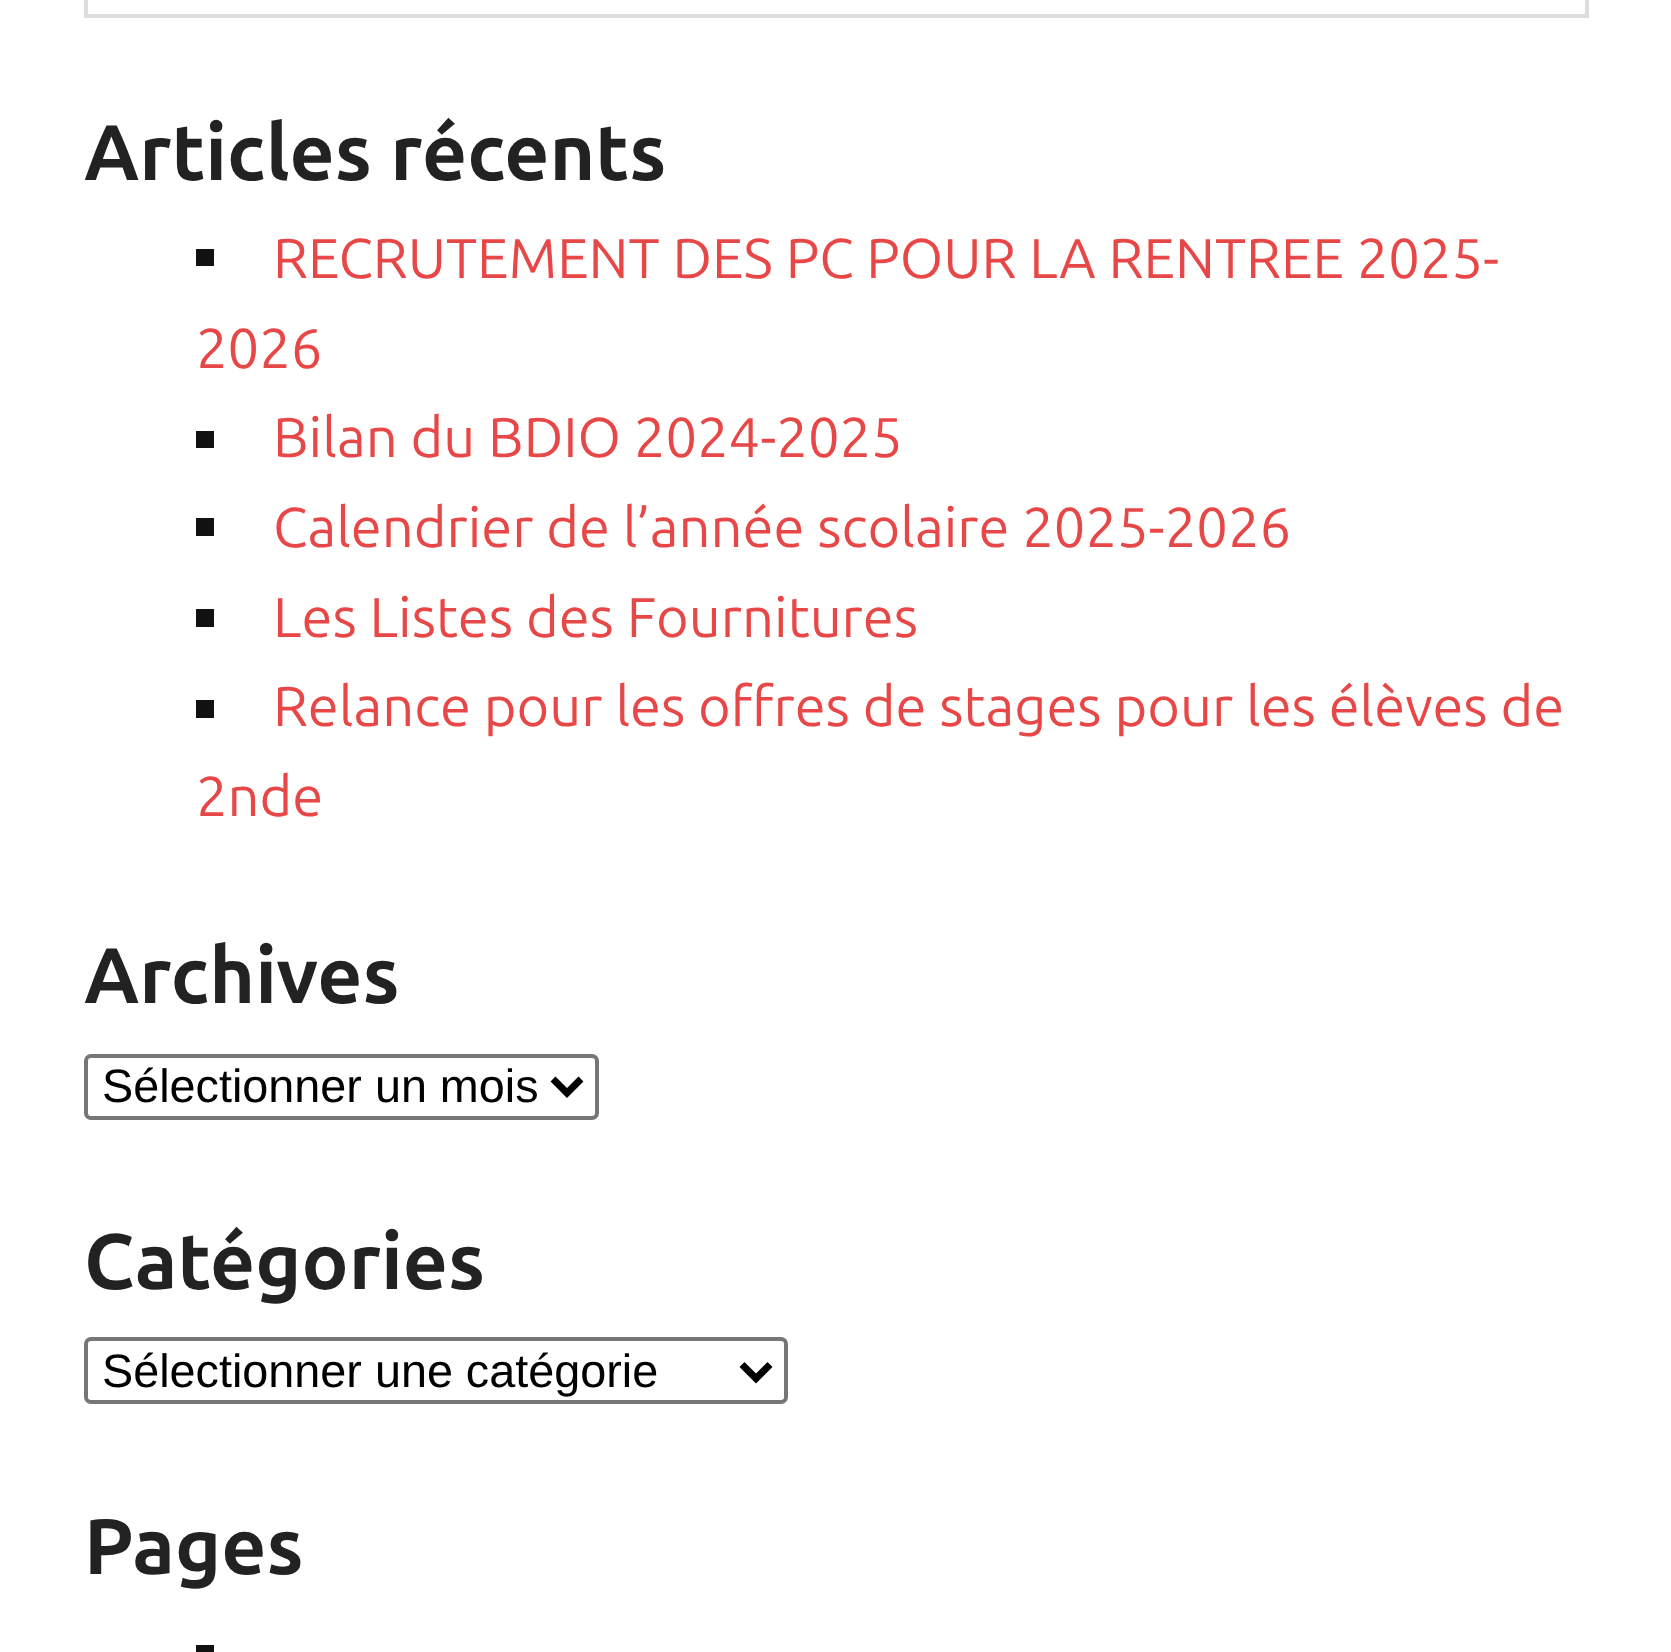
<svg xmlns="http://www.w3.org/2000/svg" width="1671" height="1652">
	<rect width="100%" height="100%" fill="#FFFFFF" />
	<rect x="86" y="-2" width="1501" height="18" fill="none" stroke="#DDDDDD" stroke-width="4" />
	<text x="84" y="180" font-family="Ubuntu" font-size="78.5" font-weight="700" fill="#222222">Articles récents</text>
	<rect x="196" y="249" width="18" height="17" fill="#111111" />
	<g font-family="Ubuntu" font-size="56" fill="#E84747">
		<text x="273" y="278">RECRUTEMENT DES PC POUR LA RENTREE 2025-</text>
		<text x="196" y="368">2026</text>
	</g>
	<rect x="196" y="431" width="18" height="17" fill="#111111" />
	<text x="273" y="457" font-family="Ubuntu" font-size="56" fill="#E84747">Bilan du BDIO 2024-2025</text>
	<rect x="196" y="518" width="18" height="18" fill="#111111" />
	<text x="273" y="547" font-family="Ubuntu" font-size="56" fill="#E84747">Calendrier de l’année scolaire 2025-2026</text>
	<rect x="196" y="609" width="18" height="18" fill="#111111" />
	<text x="273" y="637" font-family="Ubuntu" font-size="56" fill="#E84747">Les Listes des Fournitures</text>
	<rect x="196" y="700" width="18" height="18" fill="#111111" />
	<g font-family="Ubuntu" font-size="56" fill="#E84747">
		<text x="273" y="726">Relance pour les offres de stages pour les élèves de</text>
		<text x="196" y="816">2nde</text>
	</g>
	<text x="84" y="1003" font-family="Ubuntu" font-size="78.5" font-weight="700" fill="#222222">Archives</text>
	<rect x="86" y="1056" width="511" height="62" rx="5" fill="none" stroke="#767676" stroke-width="4" />
	<path d="M553 1079L567 1093L581 1079" fill="none" stroke="#000000" stroke-width="7" />
	<text x="102" y="1102" font-family="Liberation Sans" font-size="46.75" fill="#000000">Sélectionner un mois</text>
	<text x="84" y="1289" font-family="Ubuntu" font-size="78.5" font-weight="700" fill="#222222">Catégories</text>
	<rect x="86" y="1339" width="700" height="63" rx="5" fill="none" stroke="#767676" stroke-width="4" />
	<path d="M742 1364.5L756 1378.5L770 1364.5" fill="none" stroke="#000000" stroke-width="7" />
	<text x="102" y="1387" font-family="Liberation Sans" font-size="46.75" fill="#000000">Sélectionner une catégorie</text>
	<text x="84" y="1574" font-family="Ubuntu" font-size="78.5" font-weight="700" fill="#222222">Pages</text>
	<rect x="196" y="1645" width="18" height="7" fill="#111111" />
</svg>
